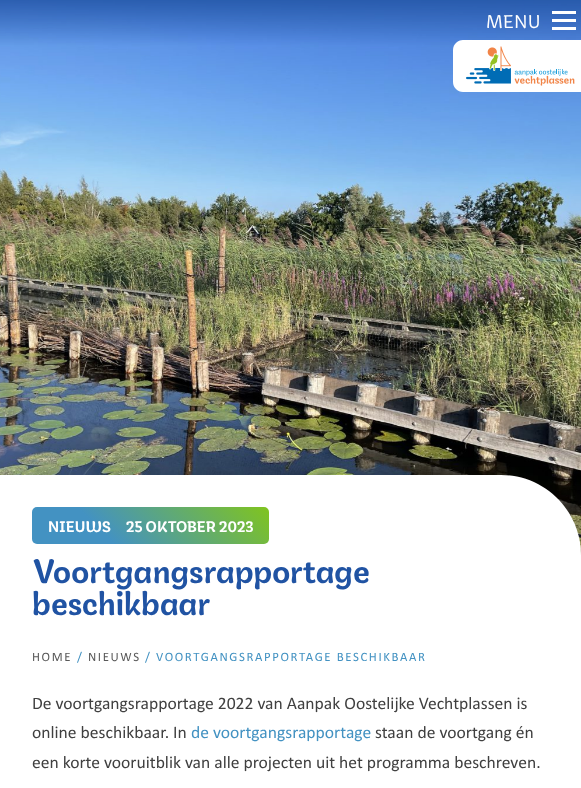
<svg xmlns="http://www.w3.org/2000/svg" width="581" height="788">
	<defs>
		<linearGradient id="g1" gradientUnits="userSpaceOnUse" x1="82" y1="594" x2="219" y2="457"><stop offset="0.3" stop-color="#4392C2" /><stop offset="1" stop-color="#80C41E" /></linearGradient>
	</defs>
	<rect width="100%" height="100%" fill="#FFFFFF" />
	<image x="0" y="0" width="581" height="555" href="assets/img2.png" />
	<text x="486" y="28" font-family="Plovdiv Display" font-size="17.6" fill="#FFFFFF">MENU</text>
	<rect x="552" y="19" width="24" height="3" fill="#FFFFFF" />
	<rect x="552" y="11" width="24" height="3" fill="#FFFFFF" />
	<rect x="552" y="27" width="24" height="3" fill="#FFFFFF" />
	<path d="M463 40H581V92H463C457.5 92 453 87.5 453 82V50C453 44.5 457.5 40 463 40Z" fill="#FFFFFF" />
	<image x="466" y="46" width="109" height="40" href="assets/img1.png" />
	<path d="M0 475H501C545 475 581 511 581 555V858C581 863.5 576.5 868 571 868H0Z" fill="#FFFFFF" />
	<rect x="32" y="507" width="237" height="37" rx="5" fill="url(#g1)" />
	<g font-family="Plovdiv Display" font-size="14.5" font-weight="700" fill="#FFFFFF">
		<text x="48" y="532">NIEUWS</text>
		<text x="126" y="532">25 OKTOBER 2023</text>
	</g>
	<g font-family="Plovdiv Display" font-size="32" font-weight="700" fill="#2053A3">
		<text x="32" y="583">Voortgangsrapportage</text>
		<text x="32" y="615">beschikbaar</text>
	</g>
	<text x="32" y="661" font-family="Calibri" font-size="12.8" letter-spacing="1.6" fill="#595959">HOME</text>
	<text x="77" y="661" font-family="Calibri" font-size="12.8" letter-spacing="1.6" fill="#4392C2">/</text>
	<text x="88" y="661" font-family="Calibri" font-size="12.8" letter-spacing="1.6" fill="#595959">NIEUWS</text>
	<text x="145" y="661" font-family="Calibri" font-size="12.8" letter-spacing="1.6" fill="#4392C2">/ VOORTGANGSRAPPORTAGE BESCHIKBAAR</text>
	<g font-family="Calibri" font-size="17.6" fill="#404040">
		<text x="32" y="709">De voortgangsrapportage 2022 van Aanpak Oostelijke Vechtplassen is</text>
		<text x="32" y="738">online beschikbaar. In</text>
	</g>
	<text x="191" y="738" font-family="Calibri" font-size="17.6" fill="#4392C2">de voortgangsrapportage</text>
	<g font-family="Calibri" font-size="17.6" fill="#404040">
		<text x="375" y="738">staan de voortgang én</text>
		<text x="32" y="768">een korte vooruitblik van alle projecten uit het programma beschreven.</text>
	</g>
</svg>
